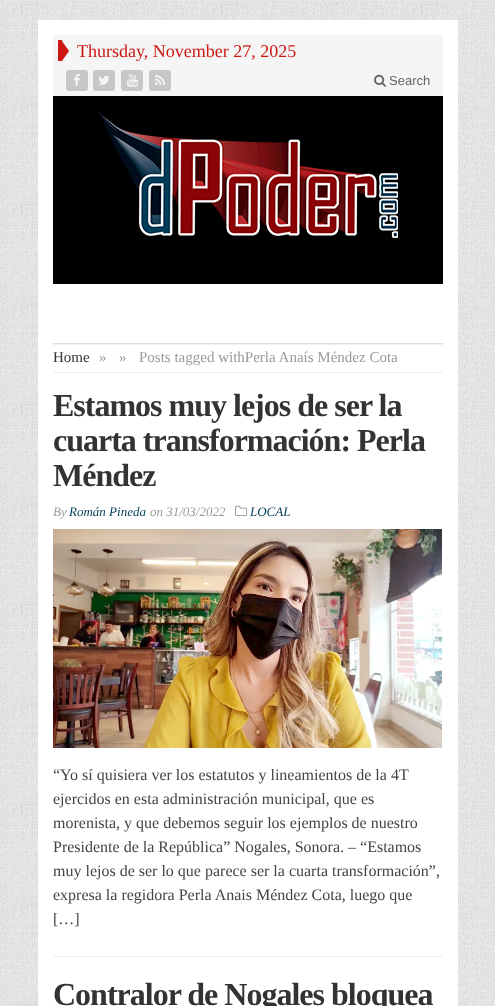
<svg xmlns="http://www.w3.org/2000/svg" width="495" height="1006">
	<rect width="100%" height="100%" fill="#FFFFFF" />
	<image x="0" y="0" width="495" height="1006" href="assets/img1.png" />
	<rect x="38" y="20" width="420" height="986" fill="#FFFFFF" />
	<rect x="53" y="35" width="390" height="61" fill="#F5F5F5" />
	<rect x="58" y="40" width="4" height="21" fill="#CD1713" />
	<path d="M62 61V41L69 51Z" fill="#CD1713" />
	<text x="77" y="57" font-family="Liberation Serif" font-size="18" fill="#CD1713">Thursday, November 27, 2025</text>
	<rect x="66" y="70" width="22" height="21" rx="3" fill="#C7C7C7" />
	<image x="73" y="73" width="7" height="13" href="assets/img2.png" />
	<rect x="93" y="70" width="22" height="21" rx="3" fill="#C7C7C7" />
	<image x="98" y="75" width="12" height="10" href="assets/img3.png" />
	<rect x="121" y="70" width="22" height="21" rx="3" fill="#C7C7C7" />
	<image x="127" y="73" width="11" height="14" href="assets/img4.png" />
	<rect x="149" y="70" width="22" height="21" rx="3" fill="#C7C7C7" />
	<image x="155" y="74" width="11" height="11" href="assets/img5.png" />
	<image x="374" y="74" width="12" height="13" href="assets/img6.png" />
	<text x="389" y="85" font-family="Liberation Sans" font-size="13" fill="#666666">Search</text>
	<rect x="53" y="96" width="390" height="188" fill="#000000" />
	<image x="98" y="111" width="300" height="127" href="assets/img7.png" />
	<rect x="53" y="343" width="390" height="1" fill="#DDDDDD" />
	<rect x="53" y="344" width="390" height="1" fill="#EFEFEF" />
	<rect x="53" y="372" width="390" height="1" fill="#EFEFEF" />
	<text x="53" y="362" font-family="Liberation Serif" font-size="15" fill="#333333">Home</text>
	<g font-family="Liberation Serif" font-size="15" fill="#999999">
		<text x="99" y="362">»</text>
		<text x="119" y="362">»</text>
		<text x="139" y="362">Posts tagged withPerla Anaís Méndez Cota</text>
	</g>
	<rect x="53" y="956" width="390" height="1" fill="#EFEFEF" />
	<g font-family="Liberation Serif" font-size="32" font-weight="700" letter-spacing="-1" fill="#333333">
		<text x="53" y="416">Estamos muy lejos de ser la</text>
		<text x="53" y="451">cuarta transformación: Perla</text>
		<text x="53" y="486">Méndez</text>
	</g>
	<text x="53" y="516" font-family="Liberation Serif" font-size="13" font-style="italic" fill="#999999">By</text>
	<text x="69" y="516" font-family="Liberation Serif" font-size="13" font-style="italic" fill="#003D58">Román Pineda</text>
	<text x="150" y="516" font-family="Liberation Serif" font-size="13" font-style="italic" fill="#999999">on 31/03/2022</text>
	<image x="235" y="505" width="13" height="11" href="assets/img8.png" />
	<text x="250" y="516" font-family="Liberation Serif" font-size="13" font-style="italic" fill="#003D58">LOCAL</text>
	<image x="53" y="529" width="389" height="219" href="assets/img9.png" />
	<g font-family="Liberation Serif" font-size="16" fill="#444444">
		<text x="53" y="780">“Yo sí quisiera ver los estatutos y lineamientos de la 4T</text>
		<text x="53" y="804">ejercidos en esta administración municipal, que es</text>
		<text x="53" y="828">morenista, y que debemos seguir los ejemplos de nuestro</text>
		<text x="53" y="852">Presidente de la República” Nogales, Sonora. – “Estamos</text>
		<text x="53" y="876">muy lejos de ser lo que parece ser la cuarta transformación”,</text>
		<text x="53" y="900">expresa la regidora Perla Anais Méndez Cota, luego que</text>
		<text x="53" y="924">[…]</text>
	</g>
	<text x="53" y="1005" font-family="Liberation Serif" font-size="32" font-weight="700" letter-spacing="-1" fill="#333333">Contralor de Nogales bloquea</text>
</svg>
